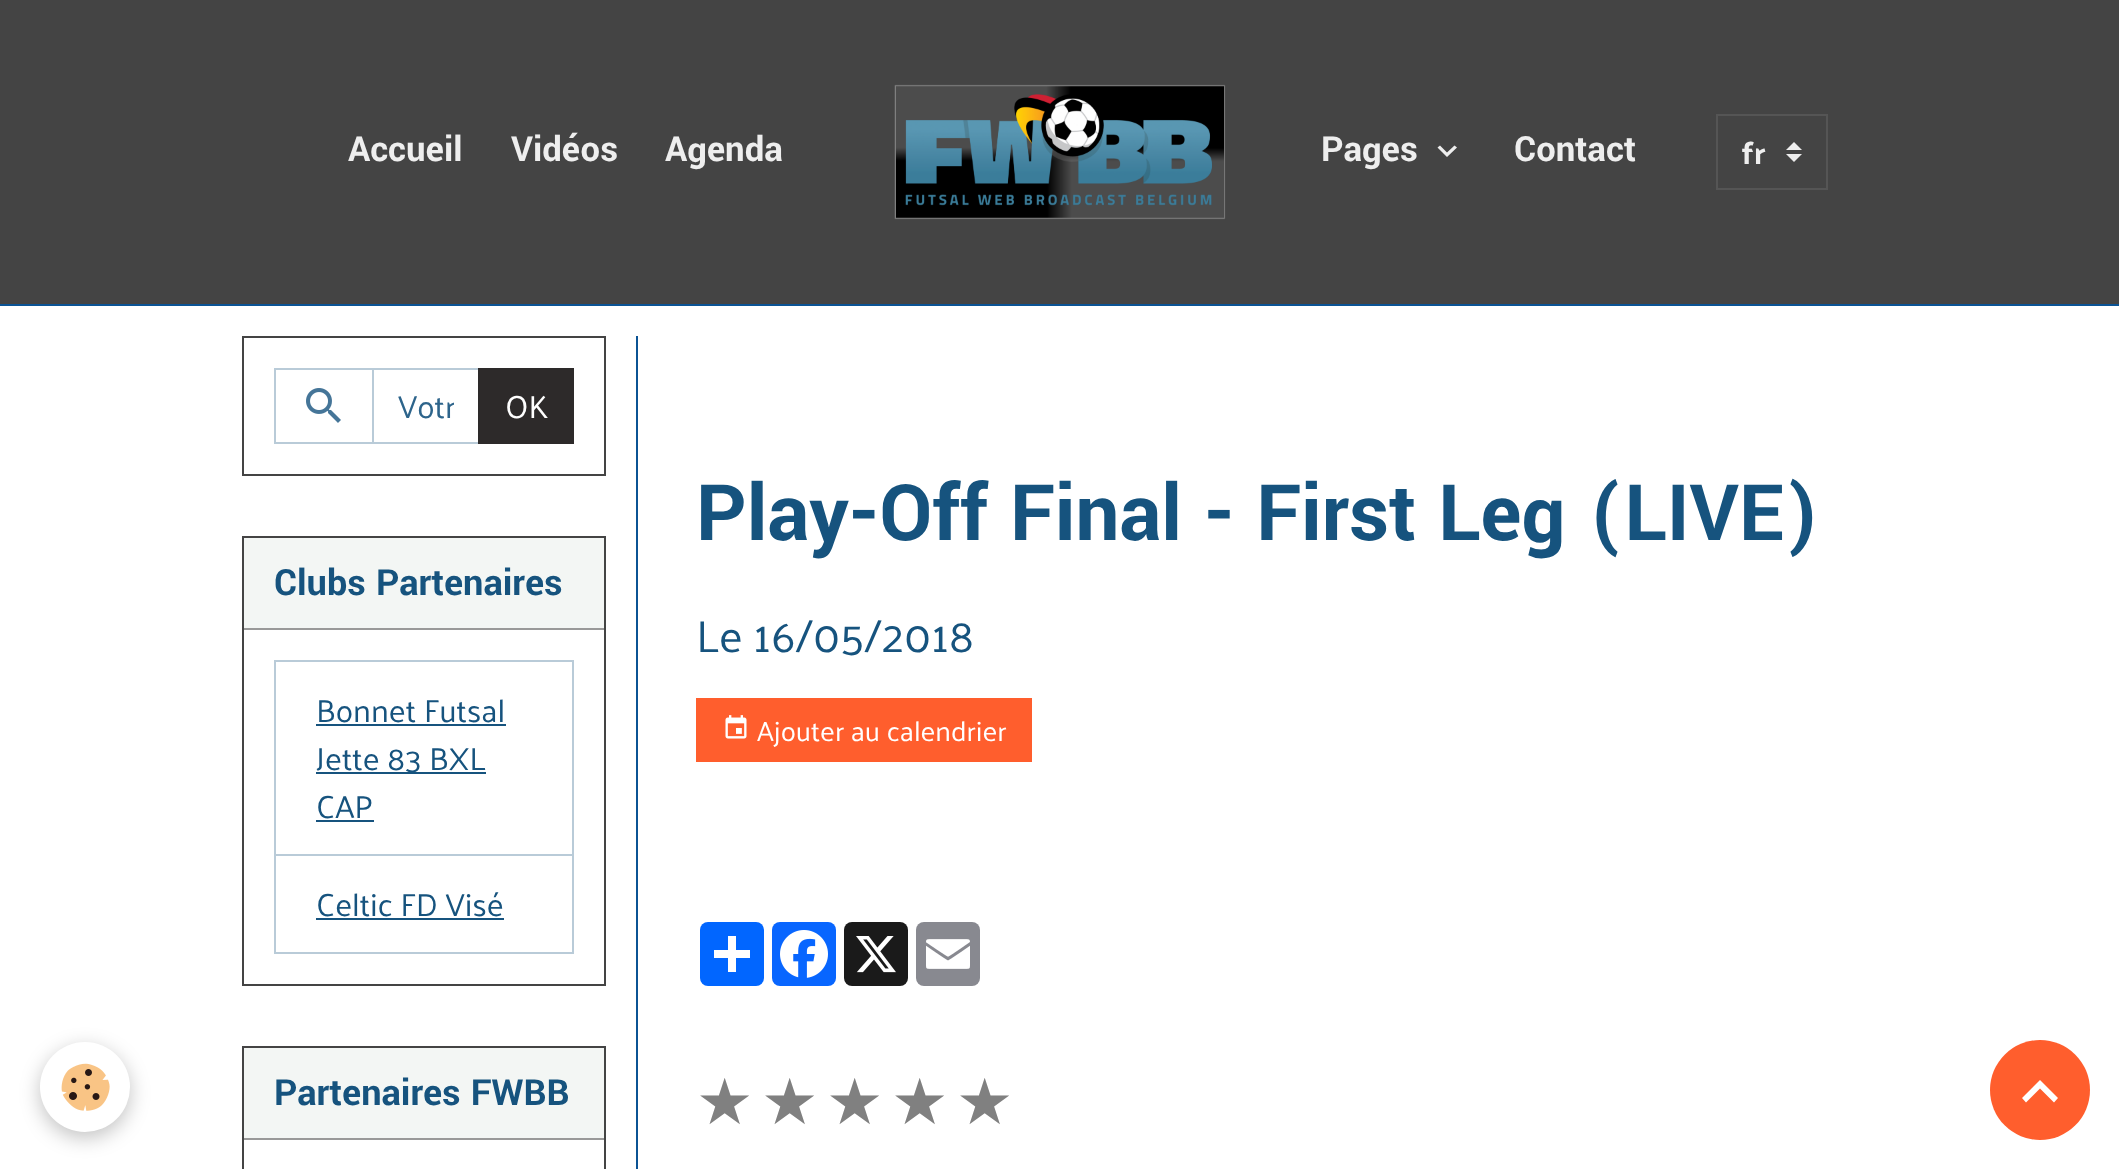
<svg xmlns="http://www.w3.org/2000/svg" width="2119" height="1169">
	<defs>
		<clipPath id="clip1"><rect x="1742" y="128" width="28" height="48" /></clipPath>
		<clipPath id="clip2"><rect x="398" y="376" width="56" height="58" /></clipPath>
	</defs>
	<rect width="100%" height="100%" fill="#FFFFFF" />
	<rect x="0" y="0" width="2119" height="304" fill="#444444" />
	<rect x="0" y="304" width="2119" height="2" fill="#0B5394" />
	<g font-family="Yantramanav" font-size="38.5" font-weight="700" fill="#EEEEEE">
		<text x="348" y="161">Accueil</text>
		<text x="511" y="161">Vidéos</text>
		<text x="665" y="161">Agenda</text>
	</g>
	<image x="894" y="84" width="332" height="136" href="assets/img1.png" />
	<text x="1321" y="161" font-family="Yantramanav" font-size="38.5" font-weight="700" fill="#EEEEEE">Pages</text>
	<path d="M1454.5 145.5L1457 147.5L1447 157L1437.5 147.5L1440 145.5L1447 152.5Z" fill="#EEEEEE" />
	<text x="1514" y="161" font-family="Yantramanav" font-size="38.5" font-weight="700" fill="#EEEEEE">Contact</text>
	<path d="M1794 142L1786 150H1802ZM1794 162L1786 154H1802Z" fill="#EEEEEE" />
	<rect x="1717" y="115" width="110" height="74" fill="none" stroke="#555555" stroke-width="2" />
	<g clip-path="url(#clip1)">
		<text x="1742" y="164" font-family="Palanquin" font-size="32" font-weight="700" fill="#EEEEEE">fr</text>
	</g>
	<rect x="40" y="1048" width="90" height="90" rx="45" fill="#000000" fill-opacity="0.24" filter="blur(10px)" />
	<circle cx="85" cy="1087" r="45" fill="#FFFFFF" />
	<image x="61" y="1063" width="49" height="48" href="assets/img2.png" />
	<rect x="243" y="337" width="362" height="138" fill="none" stroke="#444444" stroke-width="2" />
	<rect x="275" y="369" width="98" height="74" fill="none" stroke="#B9CBD8" stroke-width="2" />
	<image x="306" y="388" width="35" height="35" href="assets/img3.png" />
	<rect x="373" y="369" width="106" height="74" fill="none" stroke="#B9CBD8" stroke-width="2" />
	<g clip-path="url(#clip2)">
		<text x="398" y="418" font-family="Palanquin" font-size="32" fill="#2D648B">Votr</text>
	</g>
	<rect x="478" y="368" width="96" height="76" fill="#2D2A2A" />
	<text x="505" y="418" font-family="Palanquin" font-size="32" fill="#FFFFFF">OK</text>
	<rect x="243" y="537" width="362" height="448" fill="none" stroke="#444444" stroke-width="2" />
	<rect x="244" y="538" width="360" height="90" fill="#F3F6F4" />
	<rect x="244" y="628" width="360" height="2" fill="#999999" />
	<text x="274" y="595" font-family="Yantramanav" font-size="40" font-weight="700" fill="#16537E">Clubs Partenaires</text>
	<rect x="275" y="661" width="298" height="194" fill="none" stroke="#B9CBD8" stroke-width="2" />
	<text x="316" y="722" font-family="Palanquin" font-size="32" fill="#16537E">Bonnet Futsal</text>
	<rect x="316" y="724" width="190" height="2" fill="#16537E" />
	<rect x="316" y="772" width="170" height="2" fill="#16537E" />
	<g font-family="Palanquin" font-size="32" fill="#16537E">
		<text x="316" y="770">Jette 83 BXL</text>
		<text x="316" y="818">CAP</text>
	</g>
	<rect x="316" y="820" width="58" height="2" fill="#16537E" />
	<rect x="275" y="855" width="298" height="98" fill="none" stroke="#B9CBD8" stroke-width="2" />
	<text x="316" y="916" font-family="Palanquin" font-size="32" fill="#16537E">Celtic FD Visé</text>
	<rect x="316" y="918" width="188" height="2" fill="#16537E" />
	<rect x="243" y="1047" width="362" height="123" fill="none" stroke="#444444" stroke-width="2" />
	<rect x="244" y="1048" width="360" height="90" fill="#F3F6F4" />
	<rect x="244" y="1138" width="360" height="2" fill="#999999" />
	<text x="274" y="1105" font-family="Yantramanav" font-size="40" font-weight="700" fill="#16537E">Partenaires FWBB</text>
	<rect x="636" y="336" width="2" height="833" fill="#0B5394" />
	<text x="696" y="540" font-family="Yantramanav" font-size="86.4" font-weight="700" fill="#16537E">Play-Off Final - First Leg (LIVE)</text>
	<text x="696" y="652" font-family="Palanquin" font-size="44.75" fill="#16537E">Le 16/05/2018</text>
	<rect x="696" y="698" width="336" height="64" fill="#FF5E2D" />
	<image x="725" y="715" width="22" height="24" href="assets/img4.png" />
	<text x="757" y="741" font-family="Palanquin" font-size="28" fill="#FFFFFF">Ajouter au calendrier</text>
	<rect x="700" y="922" width="64" height="64" rx="8" fill="#0166FF" />
	<rect x="728" y="936" width="8" height="36" fill="#FFFFFF" />
	<rect x="714" y="950" width="36" height="8" fill="#FFFFFF" />
	<rect x="772" y="922" width="64" height="64" rx="8" fill="#0866FF" />
	<image x="780" y="930" width="48" height="48" href="assets/img5.png" />
	<rect x="844" y="922" width="64" height="64" rx="8" fill="#1A1A1A" />
	<image x="856" y="936" width="40" height="37" href="assets/img6.png" />
	<rect x="916" y="922" width="64" height="64" rx="8" fill="#888990" />
	<image x="926" y="939" width="44" height="30" href="assets/img7.png" />
	<g font-family="DejaVu Sans" font-size="64" fill="#808080">
		<text x="696" y="1124">★</text>
		<text x="761" y="1124">★</text>
		<text x="826" y="1124">★</text>
		<text x="891" y="1124">★</text>
		<text x="956" y="1124">★</text>
	</g>
	<circle cx="2040" cy="1090" r="50" fill="#FF5E2D" />
	<path d="M2040 1080L2058 1098L2054 1102.5L2040 1088.5L2026 1102.5L2022 1098Z" fill="#FFFFFF" />
</svg>
